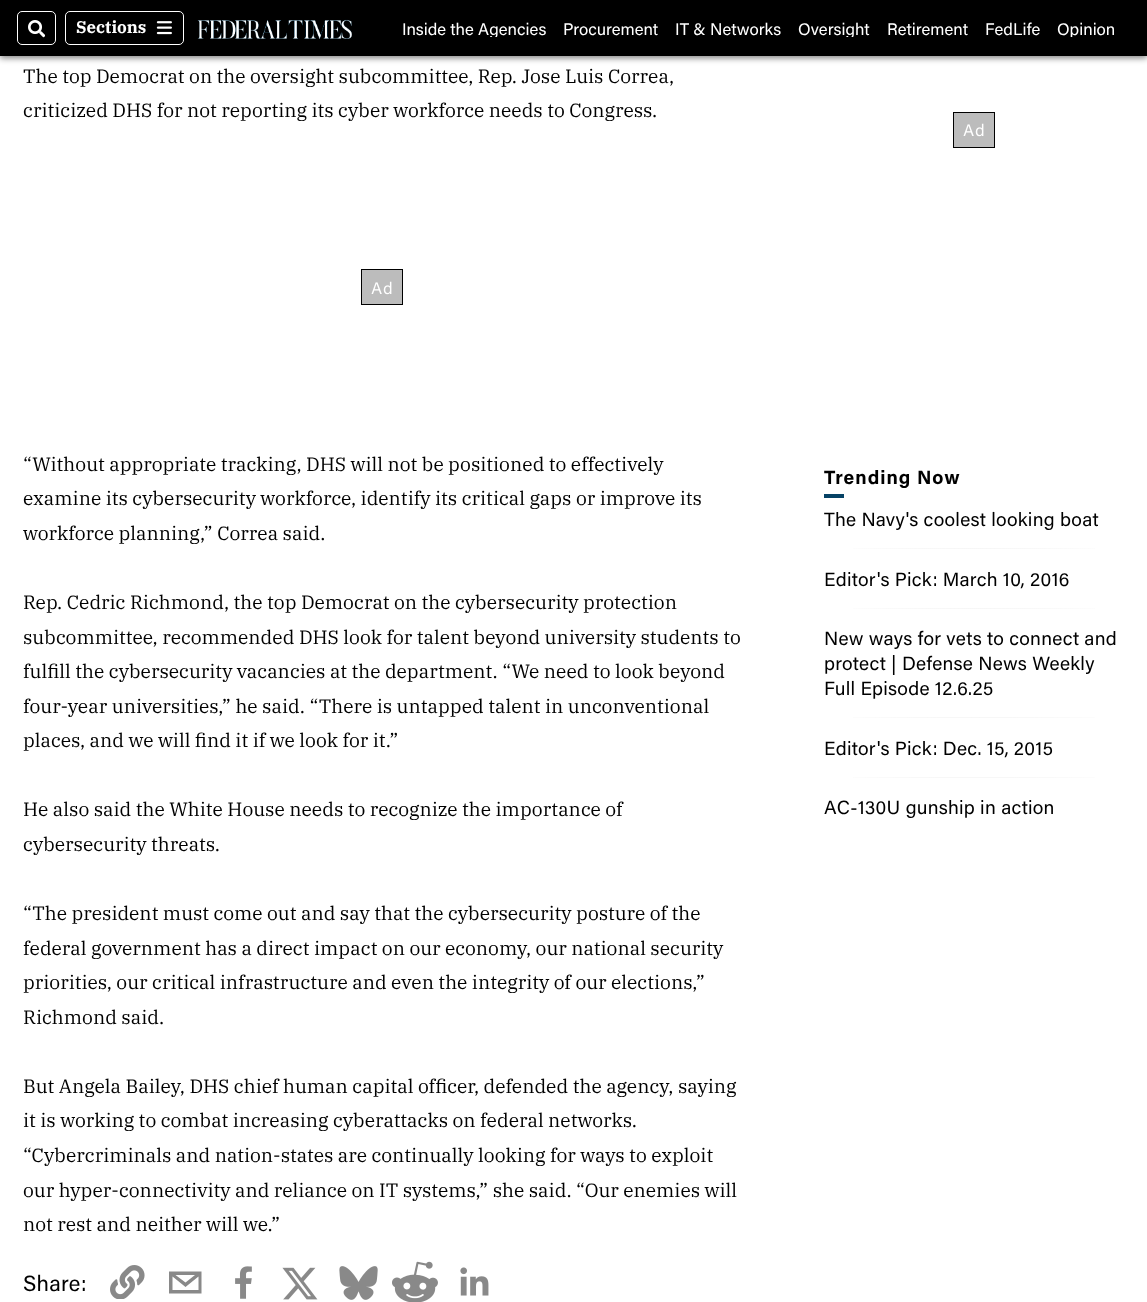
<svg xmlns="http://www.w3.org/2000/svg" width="1147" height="1302">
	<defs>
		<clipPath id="clip1"><rect x="402" y="19" width="713" height="18" /></clipPath>
		<radialGradient id="g1" gradientUnits="userSpaceOnUse" cx="0" cy="0" r="1" gradientTransform="matrix(212 0 0 0.7 974 549)"><stop offset="0" stop-color="#E2E2E2" /><stop offset="1" stop-color="#FFFFFF" /></radialGradient>
		<radialGradient id="g2" gradientUnits="userSpaceOnUse" cx="0" cy="0" r="1" gradientTransform="matrix(212 0 0 0.7 974 609)"><stop offset="0" stop-color="#E2E2E2" /><stop offset="1" stop-color="#FFFFFF" /></radialGradient>
		<radialGradient id="g3" gradientUnits="userSpaceOnUse" cx="0" cy="0" r="1" gradientTransform="matrix(212 0 0 0.7 974 718)"><stop offset="0" stop-color="#E2E2E2" /><stop offset="1" stop-color="#FFFFFF" /></radialGradient>
		<radialGradient id="g4" gradientUnits="userSpaceOnUse" cx="0" cy="0" r="1" gradientTransform="matrix(212 0 0 0.7 974 778)"><stop offset="0" stop-color="#E2E2E2" /><stop offset="1" stop-color="#FFFFFF" /></radialGradient>
	</defs>
	<rect width="100%" height="100%" fill="#FFFFFF" />
	<rect x="0" y="2" width="1147" height="56" fill="#000000" fill-opacity="0.5" filter="blur(3px)" />
	<rect x="0" y="0" width="1147" height="56" fill="#000000" />
	<rect x="17.5" y="11.5" width="38" height="33" rx="4.5" fill="none" stroke="#FFFFFF" />
	<image x="28" y="20" width="17" height="18" href="assets/img1.png" />
	<rect x="65.5" y="11.5" width="118" height="33" rx="4.5" fill="none" stroke="#FFFFFF" />
	<text x="76" y="33" font-family="IBM Plex Serif" font-size="16.75" font-weight="700" fill="#FFFFFF">Sections</text>
	<image x="156" y="21" width="16" height="14" href="assets/img2.png" />
	<image x="197" y="19" width="155" height="20" href="assets/img3.png" />
	<g clip-path="url(#clip1)">
		<text x="402" y="35" font-family="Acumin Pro" font-size="16.75" fill="#FFFFFF">Inside the Agencies</text>
	</g>
	<g font-family="Acumin Pro" font-size="16.75" fill="#FFFFFF">
		<text x="563" y="35">Procurement</text>
		<text x="675" y="35">IT &amp; Networks</text>
	</g>
	<g clip-path="url(#clip1)">
		<text x="798" y="35" font-family="Acumin Pro" font-size="16.75" fill="#FFFFFF">Oversight</text>
	</g>
	<g font-family="Acumin Pro" font-size="16.75" fill="#FFFFFF">
		<text x="887" y="35">Retirement</text>
		<text x="985" y="35">FedLife</text>
	</g>
	<g clip-path="url(#clip1)">
		<text x="1057" y="35" font-family="Acumin Pro" font-size="16.75" fill="#FFFFFF">Opinion</text>
	</g>
	<g font-family="IBM Plex Serif" font-size="19.2" fill="#000000">
		<text x="23" y="83">The top Democrat on the oversight subcommittee, Rep. Jose Luis Correa,</text>
		<text x="23" y="117">criticized DHS for not reporting its cyber workforce needs to Congress.</text>
	</g>
	<rect x="362" y="270" width="40" height="34" fill="#BCBCBC" />
	<image x="371" y="281" width="21" height="14" href="assets/img4.png" />
	<rect x="361.5" y="269.5" width="41" height="35" fill="none" stroke="#000000" />
	<g font-family="IBM Plex Serif" font-size="19.2" fill="#000000">
		<text x="23" y="471">“Without appropriate tracking, DHS will not be positioned to effectively</text>
		<text x="23" y="505">examine its cybersecurity workforce, identify its critical gaps or improve its</text>
		<text x="23" y="540">workforce planning,” Correa said.</text>
		<text x="23" y="609">Rep. Cedric Richmond, the top Democrat on the cybersecurity protection</text>
		<text x="23" y="644">subcommittee, recommended DHS look for talent beyond university students to</text>
		<text x="23" y="678">fulfill the cybersecurity vacancies at the department. “We need to look beyond</text>
		<text x="23" y="713">four-year universities,” he said. “There is untapped talent in unconventional</text>
		<text x="23" y="747">places, and we will find it if we look for it.”</text>
		<text x="23" y="816">He also said the White House needs to recognize the importance of</text>
		<text x="23" y="851">cybersecurity threats.</text>
		<text x="23" y="920">“The president must come out and say that the cybersecurity posture of the</text>
		<text x="23" y="955">federal government has a direct impact on our economy, our national security</text>
		<text x="23" y="989">priorities, our critical infrastructure and even the integrity of our elections,”</text>
		<text x="23" y="1024">Richmond said.</text>
		<text x="23" y="1093">But Angela Bailey, DHS chief human capital officer, defended the agency, saying</text>
		<text x="23" y="1127">it is working to combat increasing cyberattacks on federal networks.</text>
		<text x="23" y="1162">“Cybercriminals and nation-states are continually looking for ways to exploit</text>
		<text x="23" y="1197">our hyper-connectivity and reliance on IT systems,” she said. “Our enemies will</text>
		<text x="23" y="1231">not rest and neither will we.”</text>
	</g>
	<text x="23" y="1291" font-family="Acumin Pro" font-size="22" letter-spacing="0.25" fill="#000000">Share:</text>
	<image x="110" y="1265" width="35" height="34" href="assets/img5.png" />
	<path d="M169 1271.5V1293.5H201.5V1271.5ZM195 1275L185.5 1282.5L175.5 1275ZM172.5 1290V1276.5L185.5 1287L198.5 1276.5V1290Z" fill="#898989" />
	<image x="235" y="1266" width="17" height="33" href="assets/img6.png" />
	<image x="282" y="1267" width="36" height="33" href="assets/img7.png" />
	<image x="339" y="1266" width="39" height="34" href="assets/img8.png" />
	<image x="392" y="1261" width="46" height="41" href="assets/img9.png" />
	<image x="460" y="1267" width="29" height="29" href="assets/img10.png" />
	<rect x="954" y="113" width="40" height="34" fill="#BCBCBC" />
	<image x="963" y="123" width="21" height="14" href="assets/img4.png" />
	<rect x="953.5" y="112.5" width="41" height="35" fill="none" stroke="#000000" />
	<text x="824" y="484" font-family="Acumin Pro" font-size="19.2" font-weight="700" letter-spacing="1" fill="#000000">Trending Now</text>
	<rect x="824" y="494" width="20" height="4" fill="#064265" />
	<text x="824" y="526" font-family="Acumin Pro" font-size="19.2" letter-spacing="0.25" fill="#000000">The Navy's coolest looking boat</text>
	<rect x="853" y="548" width="242" height="1" fill="url(#g1)" />
	<text x="824" y="586" font-family="Acumin Pro" font-size="19.2" letter-spacing="0.25" fill="#000000">Editor's Pick: March 10, 2016</text>
	<rect x="853" y="608" width="242" height="1" fill="url(#g2)" />
	<g font-family="Acumin Pro" font-size="19.2" letter-spacing="0.25" fill="#000000">
		<text x="824" y="645">New ways for vets to connect and</text>
		<text x="824" y="670">protect | Defense News Weekly</text>
		<text x="824" y="695">Full Episode 12.6.25</text>
	</g>
	<rect x="853" y="717" width="242" height="1" fill="url(#g3)" />
	<text x="824" y="755" font-family="Acumin Pro" font-size="19.2" letter-spacing="0.25" fill="#000000">Editor's Pick: Dec. 15, 2015</text>
	<rect x="853" y="777" width="242" height="1" fill="url(#g4)" />
	<text x="824" y="814" font-family="Acumin Pro" font-size="19.2" letter-spacing="0.25" fill="#000000">AC-130U gunship in action</text>
</svg>
